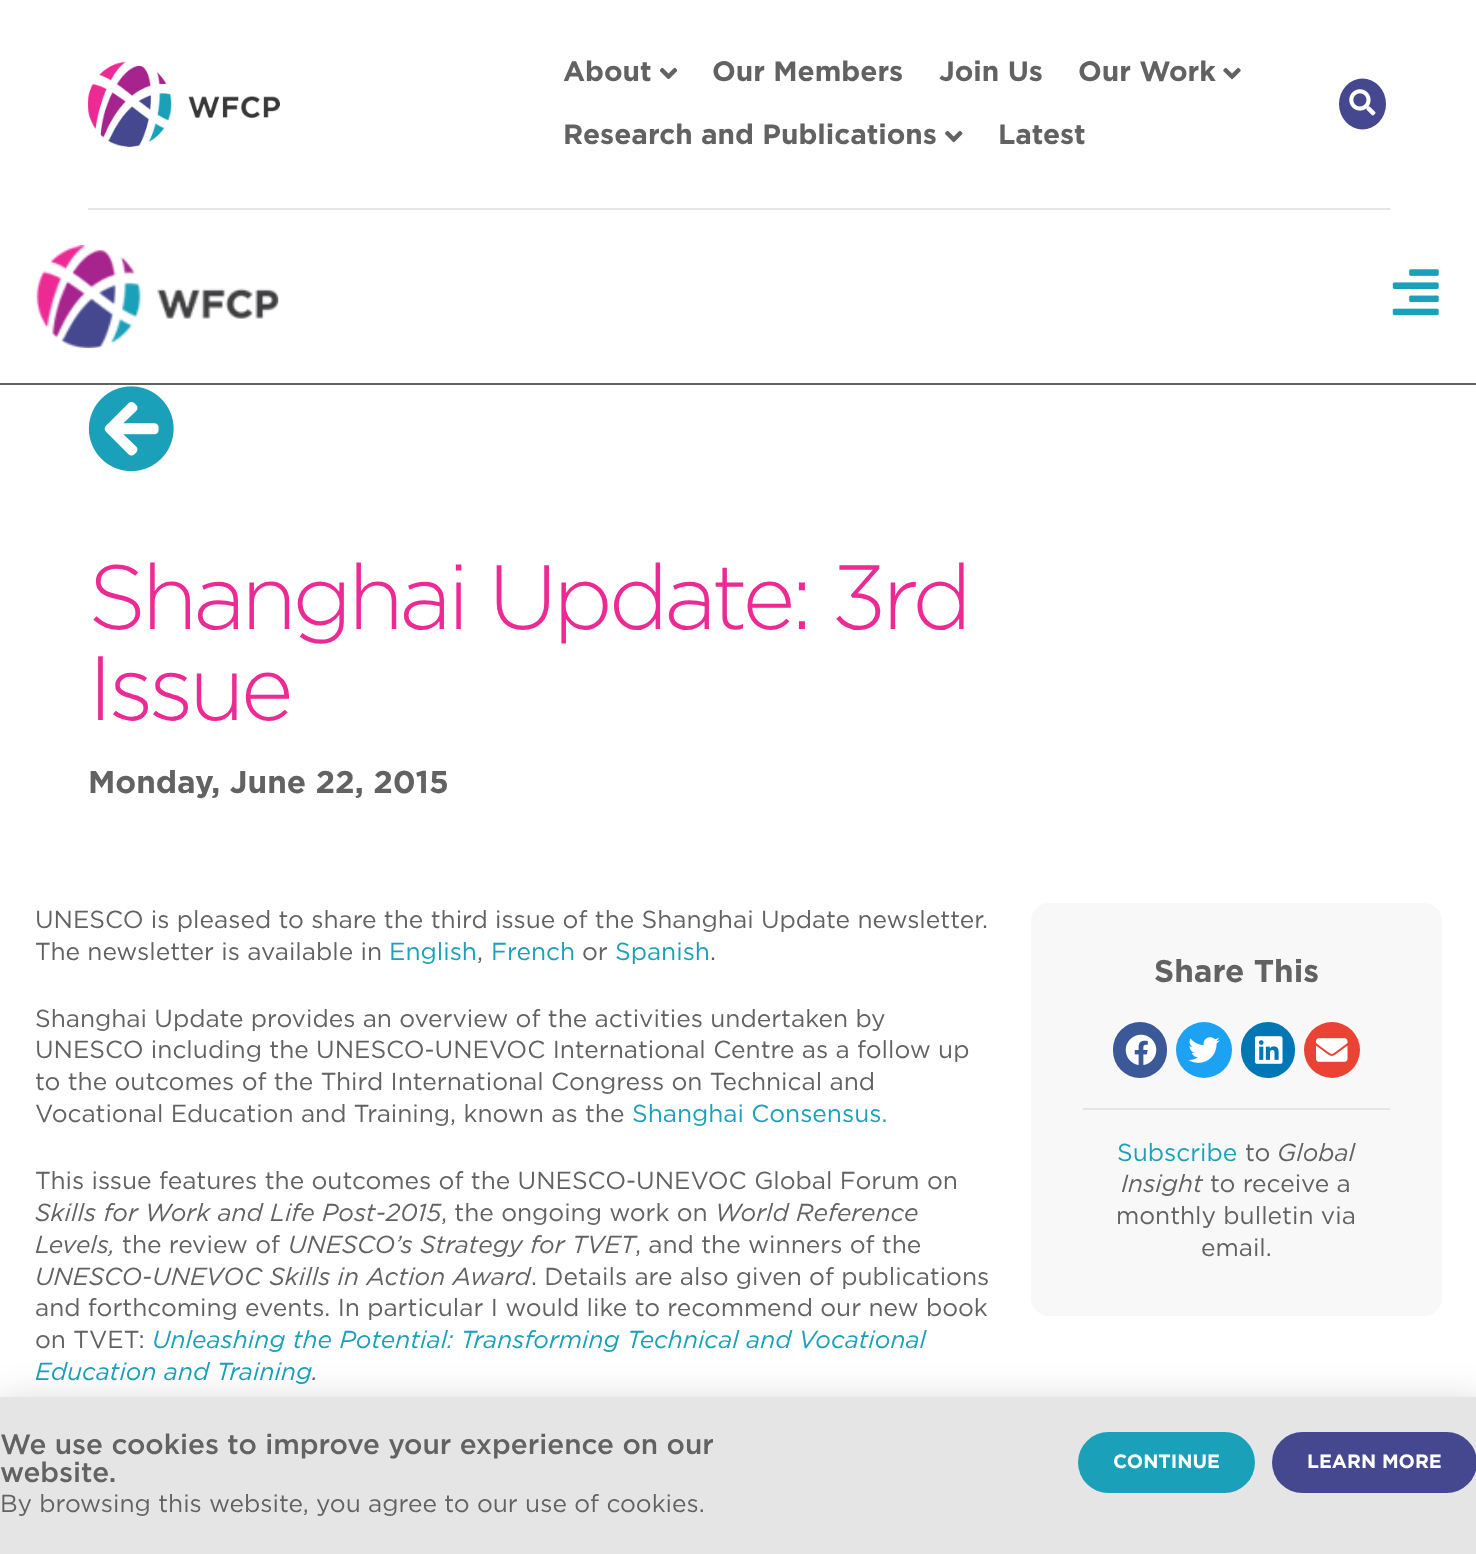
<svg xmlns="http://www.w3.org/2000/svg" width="1476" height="1554">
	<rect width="100%" height="100%" fill="#FFFFFF" />
	<text x="563" y="81" font-family="Gotham" font-size="28" font-weight="700" fill="#626262">About</text>
	<image x="660" y="67" width="17" height="13" href="assets/img1.png" />
	<g font-family="Gotham" font-size="28" font-weight="700" fill="#626262">
		<text x="712" y="81">Our Members</text>
		<text x="939" y="81">Join Us</text>
		<text x="1078" y="81">Our Work</text>
	</g>
	<image x="1223" y="67" width="18" height="13" href="assets/img2.png" />
	<text x="563" y="144" font-family="Gotham" font-size="28" font-weight="700" fill="#626262">Research and Publications</text>
	<image x="945" y="130" width="18" height="13" href="assets/img3.png" />
	<text x="998" y="144" font-family="Gotham" font-size="28" font-weight="700" fill="#626262">Latest</text>
	<ellipse cx="1362.5" cy="104" rx="23.5" ry="25.5" fill="#45488E" />
	<image x="1349" y="89" width="27" height="27" href="assets/img4.png" />
	<rect x="88" y="208" width="1302" height="2" fill="#E5E5E5" />
	<image x="88" y="61" width="192" height="86" href="assets/img5.png" />
	<rect x="0" y="383" width="1476" height="2" fill="#626262" />
	<image x="36" y="245" width="243" height="103" href="assets/img6.png" />
	<image x="1392" y="269" width="47" height="47" href="assets/img7.png" />
	<image x="88" y="386" width="86" height="86" href="assets/img8.png" />
	<g font-family="Gotham" font-size="91" font-weight="300" letter-spacing="-4.4" fill="#ED2994">
		<text x="88" y="629">Shanghai Update: 3rd</text>
		<text x="88" y="720">Issue</text>
	</g>
	<text x="88" y="793" font-family="Gotham" font-size="31.5" font-weight="700" fill="#626262">Monday, June 22, 2015</text>
	<g font-family="Gotham" font-size="24.5" fill="#626262">
		<text x="35" y="928">UNESCO is pleased to share the third issue of the Shanghai Update newsletter.</text>
		<text x="35" y="960">The newsletter is available in</text>
	</g>
	<text x="389" y="960" font-family="Gotham" font-size="24.5" fill="#1BA0BA">English</text>
	<text x="477" y="960" font-family="Gotham" font-size="24.5" fill="#626262">,</text>
	<text x="491" y="960" font-family="Gotham" font-size="24.5" fill="#1BA0BA">French</text>
	<text x="582" y="960" font-family="Gotham" font-size="24.5" fill="#626262">or</text>
	<text x="615" y="960" font-family="Gotham" font-size="24.5" fill="#1BA0BA">Spanish</text>
	<g font-family="Gotham" font-size="24.5" fill="#626262">
		<text x="710" y="960">.</text>
		<text x="35" y="1027">Shanghai Update provides an overview of the activities undertaken by</text>
		<text x="35" y="1058">UNESCO including the UNESCO-UNEVOC International Centre as a follow up</text>
		<text x="35" y="1090">to the outcomes of the Third International Congress on Technical and</text>
		<text x="35" y="1122">Vocational Education and Training, known as the</text>
	</g>
	<text x="632" y="1122" font-family="Gotham" font-size="24.5" fill="#1BA0BA">Shanghai Consensus.</text>
	<text x="35" y="1189" font-family="Gotham" font-size="24.5" fill="#626262">This issue features the outcomes of the UNESCO-UNEVOC Global Forum on</text>
	<text x="35" y="1221" font-family="Gotham" font-size="24.5" font-style="italic" fill="#626262">Skills for Work and Life Post-2015</text>
	<text x="441" y="1221" font-family="Gotham" font-size="24.5" fill="#626262">, the ongoing work on</text>
	<g font-family="Gotham" font-size="24.5" font-style="italic" fill="#626262">
		<text x="715" y="1221">World Reference</text>
		<text x="35" y="1253">Levels,</text>
	</g>
	<text x="122" y="1253" font-family="Gotham" font-size="24.5" fill="#626262">the review of</text>
	<text x="288" y="1253" font-family="Gotham" font-size="24.5" font-style="italic" fill="#626262">UNESCO’s Strategy for TVET</text>
	<text x="635" y="1253" font-family="Gotham" font-size="24.5" fill="#626262">, and the winners of the</text>
	<text x="35" y="1285" font-family="Gotham" font-size="24.5" font-style="italic" fill="#626262">UNESCO-UNEVOC Skills in Action Award</text>
	<g font-family="Gotham" font-size="24.5" fill="#626262">
		<text x="531" y="1285">. Details are also given of publications</text>
		<text x="35" y="1316">and forthcoming events. In particular I would like to recommend our new book</text>
		<text x="35" y="1348">on TVET:</text>
	</g>
	<g font-family="Gotham" font-size="24.5" font-style="italic" fill="#1BA0BA">
		<text x="152" y="1348">Unleashing the Potential: Transforming Technical and Vocational</text>
		<text x="35" y="1380">Education and Training</text>
	</g>
	<text x="312" y="1380" font-family="Gotham" font-size="24.5" font-style="italic" fill="#626262">.</text>
	<rect x="1031" y="903" width="411" height="413" rx="18" fill="#F8F8F8" />
	<text x="1154" y="982" font-family="Gotham" font-size="31.5" font-weight="700" fill="#626262">Share This</text>
	<rect x="1113" y="1022" width="54" height="56" rx="27" fill="#3B5998" />
	<image x="1125" y="1034" width="32" height="31" href="assets/img9.png" />
	<circle cx="1204" cy="1050" r="28" fill="#1DA1F2" />
	<image x="1188" y="1037" width="32" height="26" href="assets/img10.png" />
	<rect x="1241" y="1022" width="54" height="56" rx="27" fill="#0077B5" />
	<image x="1254" y="1036" width="29" height="28" href="assets/img11.png" />
	<circle cx="1332" cy="1050" r="28" fill="#EA4335" />
	<image x="1316" y="1038" width="32" height="24" href="assets/img12.png" />
	<rect x="1083" y="1108" width="307" height="2" fill="#E5E5E5" />
	<text x="1117" y="1161" font-family="Gotham" font-size="24.5" fill="#1BA0BA">Subscribe</text>
	<text x="1245" y="1161" font-family="Gotham" font-size="24.5" fill="#626262">to</text>
	<g font-family="Gotham" font-size="24.5" font-style="italic" fill="#626262">
		<text x="1277" y="1161">Global</text>
		<text x="1121" y="1192">Insight</text>
	</g>
	<g font-family="Gotham" font-size="24.5" fill="#626262">
		<text x="1210" y="1192">to receive a</text>
		<text x="1116" y="1224">monthly bulletin via</text>
		<text x="1201" y="1256">email.</text>
	</g>
	<rect x="-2" y="1405" width="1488" height="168" fill="#000000" fill-opacity="0.2" filter="blur(20px)" />
	<rect x="0" y="1397" width="1476" height="157" fill="#E5E5E5" />
	<g font-family="Gotham" font-size="28" font-weight="500" fill="#626262">
		<text x="0" y="1454">We use cookies to improve your experience on our</text>
		<text x="0" y="1482">website.</text>
	</g>
	<text x="0" y="1512" font-family="Gotham" font-size="24.5" fill="#626262">By browsing this website, you agree to our use of cookies.</text>
	<rect x="1078" y="1432" width="177" height="61" rx="30.5" fill="#1BA0BA" />
	<text x="1113" y="1468" font-family="Gotham" font-size="19.25" font-weight="700" fill="#FFFFFF">CONTINUE</text>
	<rect x="1272" y="1432" width="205" height="61" rx="30.5" fill="#45488E" />
	<text x="1307" y="1468" font-family="Gotham" font-size="19.25" font-weight="700" fill="#FFFFFF">LEARN MORE</text>
</svg>
